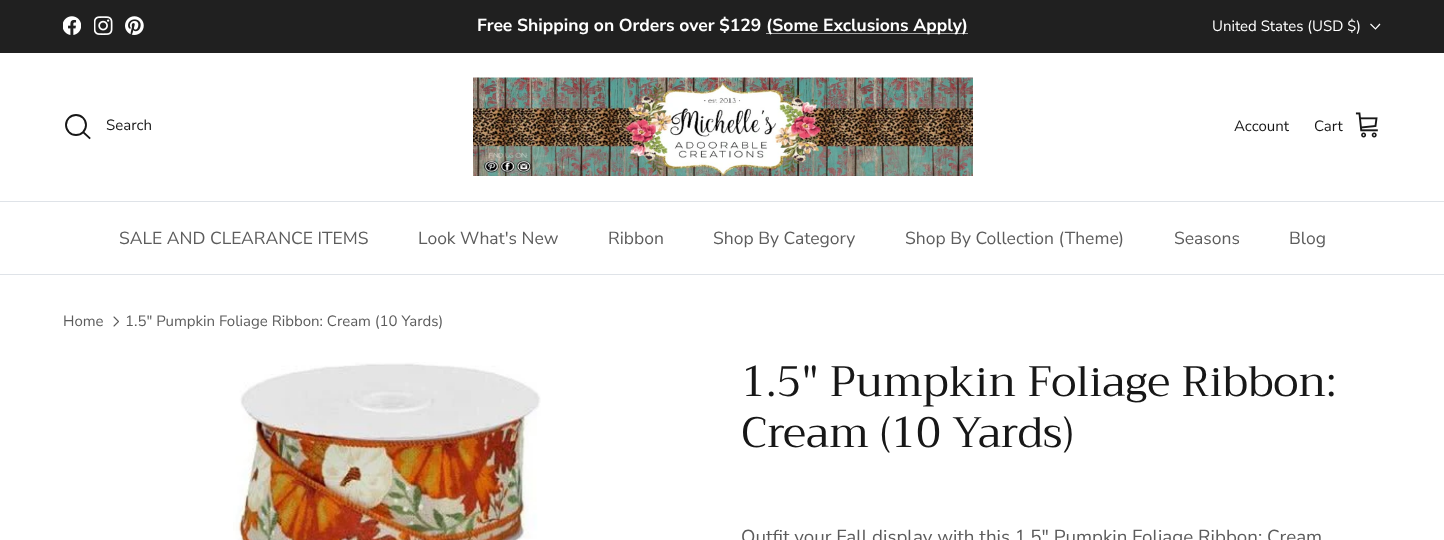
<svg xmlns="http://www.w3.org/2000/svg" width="1444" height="540">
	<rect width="100%" height="100%" fill="#FFFFFF" />
	<rect x="0" y="0" width="1444" height="53" fill="#202020" />
	<image x="63" y="16" width="18" height="19" href="assets/img1.png" />
	<image x="94" y="16" width="19" height="19" href="assets/img2.png" />
	<image x="125" y="16" width="19" height="19" href="assets/img3.png" />
	<text x="477" y="31" font-family="Nunito Sans" font-size="17.5" font-weight="700" fill="#FFFFFF">Free Shipping on Orders over $129</text>
	<rect x="766" y="33" width="202" height="1" fill="#A6A6A6" />
	<text x="766" y="31" font-family="Nunito Sans" font-size="17.5" font-weight="700" fill="#FFFFFF">(Some Exclusions Apply)</text>
	<text x="1212" y="31" font-family="Nunito Sans" font-size="15" fill="#FFFFFF">United States (USD $)</text>
	<path d="M1380 24L1375.5 29L1370.5 24" fill="none" stroke="#FFFFFF" stroke-width="1.2" />
	<rect x="0" y="201" width="1444" height="1" fill="#DFE3E8" />
	<circle cx="76" cy="125" r="10" fill="none" stroke="#171717" stroke-width="1.9" />
	<text x="106" y="130" font-family="Nunito Sans" font-size="15" fill="#171717">Search</text>
	<path d="M83.5 132.5L89.5 138" fill="none" stroke="#171717" stroke-width="1.9" stroke-linecap="square" />
	<image x="473" y="77" width="500" height="99" href="assets/img4.png" />
	<g font-family="Nunito Sans" font-size="15" fill="#171717">
		<text x="1234" y="131">Account</text>
		<text x="1314" y="131">Cart</text>
	</g>
	<image x="1355" y="112" width="23" height="26" href="assets/img5.png" />
	<rect x="0" y="274" width="1444" height="1" fill="#DFE3E8" />
	<g font-family="Nunito Sans" font-size="17.5" fill="#5C5C5C">
		<text x="119" y="244">SALE AND CLEARANCE ITEMS</text>
		<text x="418" y="244">Look What's New</text>
		<text x="608" y="244">Ribbon</text>
		<text x="713" y="244">Shop By Category</text>
		<text x="905" y="244">Shop By Collection (Theme)</text>
		<text x="1174" y="244">Seasons</text>
		<text x="1289" y="244">Blog</text>
	</g>
	<text x="63" y="326" font-family="Nunito Sans" font-size="15" fill="#5C5C5C">Home</text>
	<path d="M114 326L118.5 321.5L114 317" fill="none" stroke="#5C5C5C" stroke-width="1.1" stroke-linecap="round" stroke-linejoin="round" />
	<text x="125" y="326" font-family="Nunito Sans" font-size="15" fill="#5C5C5C">1.5" Pumpkin Foliage Ribbon: Cream (10 Yards)</text>
	<image x="233" y="362" width="308" height="178" href="assets/img6.png" />
	<g font-family="Trirong" font-size="42.5" fill="#171717">
		<text x="741" y="396">1.5" Pumpkin Foliage Ribbon:</text>
		<text x="741" y="447">Cream (10 Yards)</text>
	</g>
	<text x="741" y="543" font-family="Nunito Sans" font-size="18.75" fill="#5C5C5C">Outfit your Fall display with this 1.5" Pumpkin Foliage Ribbon: Cream</text>
</svg>
